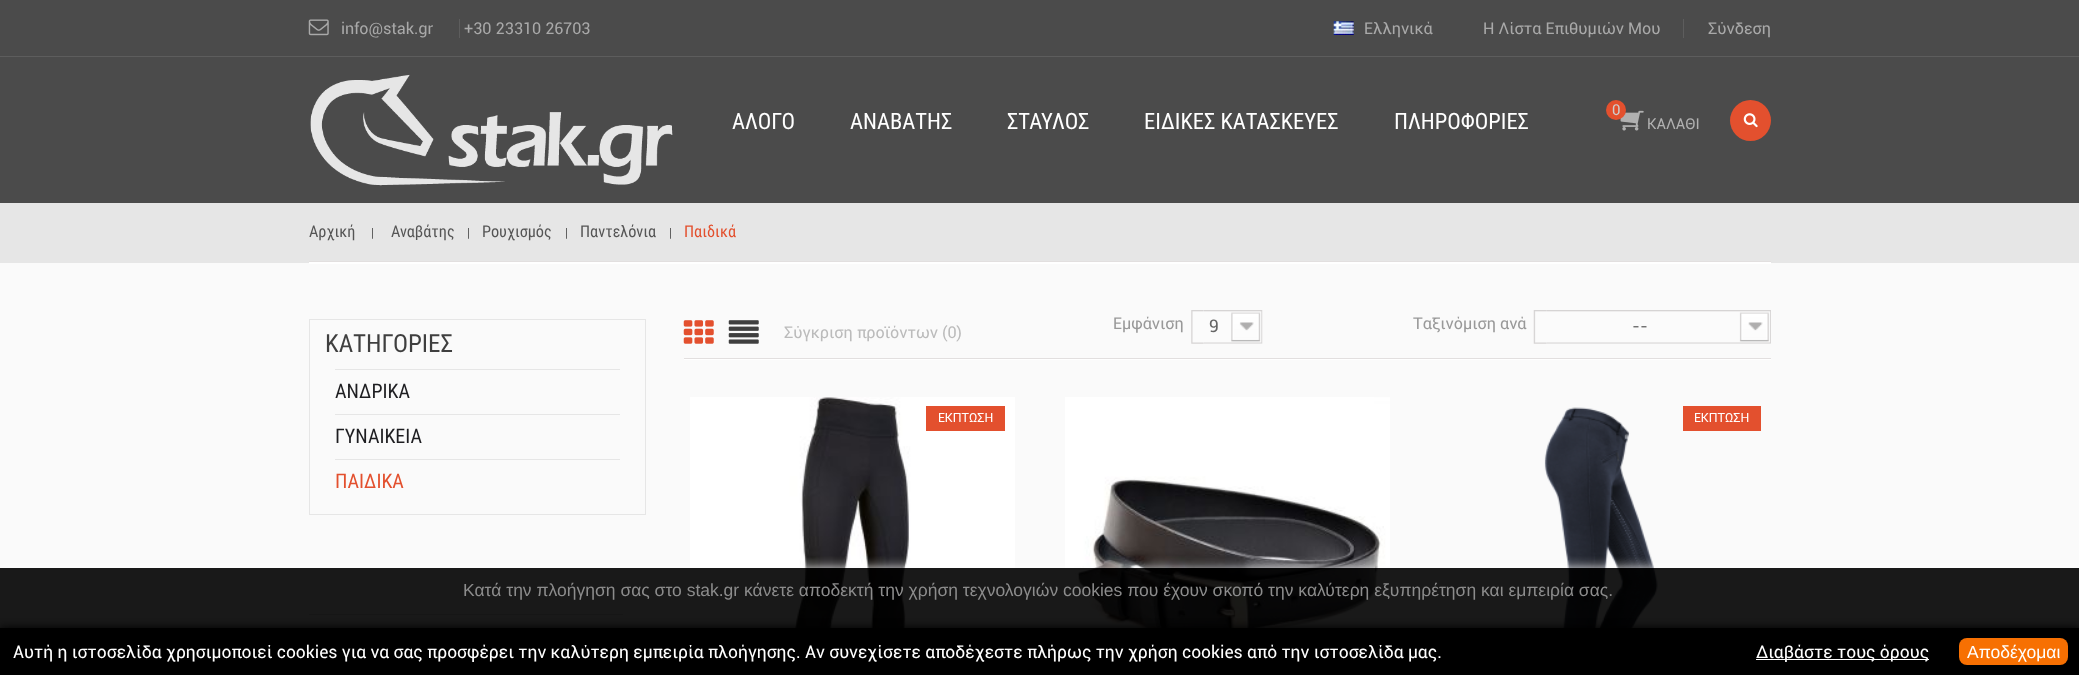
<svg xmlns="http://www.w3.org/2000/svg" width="2079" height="675">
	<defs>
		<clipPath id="clip1"><rect x="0" y="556" width="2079" height="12" /></clipPath>
	</defs>
	<rect width="100%" height="100%" fill="#FAFAFA" />
	<rect x="0" y="0" width="2079" height="203" fill="#4B4B4B" />
	<rect x="0" y="56" width="2079" height="1" fill="#5D5D5D" />
	<rect x="459" y="19" width="1" height="19" fill="#5D5D5D" />
	<image x="308" y="19" width="21" height="17" href="assets/img1.png" />
	<g font-family="Roboto" font-size="16.25" fill="#A9A9A9">
		<text x="341" y="34">info@stak.gr</text>
		<text x="464" y="34">+30 23310 26703</text>
	</g>
	<image x="1333" y="21" width="21" height="14" href="assets/img2.png" />
	<text x="1364" y="34" font-family="Roboto" font-size="16.25" fill="#A9A9A9">Ελληνικά</text>
	<rect x="1683" y="19" width="1" height="19" fill="#5D5D5D" />
	<g font-family="Roboto" font-size="16.25" fill="#A9A9A9">
		<text x="1483" y="34">Η Λίστα Επιθυμιών Μου</text>
		<text x="1708" y="34">Σύνδεση</text>
	</g>
	<image x="310" y="74" width="363" height="112" href="assets/img3.png" />
	<g font-family="Roboto Condensed" font-size="22.5" fill="#FFFFFF">
		<text x="732" y="129">ΑΛΟΓΟ</text>
		<text x="850" y="129">ΑΝΑΒΑΤΗΣ</text>
		<text x="1007" y="129">ΣΤΑΥΛΟΣ</text>
		<text x="1144" y="129">ΕΙΔΙΚΕΣ ΚΑΤΑΣΚΕΥΕΣ</text>
		<text x="1394" y="129">ΠΛΗΡΟΦΟΡΙΕΣ</text>
	</g>
	<image x="1620" y="110" width="24" height="21" href="assets/img4.png" />
	<circle cx="1616" cy="110" r="10" fill="#E3502E" />
	<text x="1612" y="115" font-family="Roboto" font-size="15" fill="#CECECE">0</text>
	<text x="1647" y="129" font-family="Roboto" font-size="15" fill="#B1B1B1">ΚΑΛΑΘΙ</text>
	<circle cx="1750.5" cy="120.5" r="20.5" fill="#E3502E" />
	<image x="1743" y="113" width="15" height="15" href="assets/img5.png" />
	<rect x="0" y="203" width="2079" height="60" fill="#E6E6E6" />
	<rect x="309" y="262" width="1462" height="2" fill="#FFFFFF" />
	<rect x="309" y="261" width="1462" height="1" fill="#E2DFDF" />
	<text x="309" y="237" font-family="Roboto Condensed" font-size="16.25" fill="#555555">Αρχική</text>
	<text x="371" y="237" font-family="Roboto Condensed" font-size="12.5" fill="#555555">|</text>
	<text x="391" y="237" font-family="Roboto Condensed" font-size="16.25" fill="#555555">Αναβάτης</text>
	<text x="467" y="237" font-family="Roboto Condensed" font-size="12.5" fill="#555555">|</text>
	<text x="482" y="237" font-family="Roboto Condensed" font-size="16.25" fill="#555555">Ρουχισμός</text>
	<text x="565" y="237" font-family="Roboto Condensed" font-size="12.5" fill="#555555">|</text>
	<text x="580" y="237" font-family="Roboto Condensed" font-size="16.25" fill="#555555">Παντελόνια</text>
	<text x="669" y="237" font-family="Roboto Condensed" font-size="12.5" fill="#555555">|</text>
	<text x="684" y="237" font-family="Roboto Condensed" font-size="16.25" fill="#E3502E">Παιδικά</text>
	<rect x="309.5" y="319.5" width="336" height="195" fill="none" stroke="#E6E6E6" />
	<text x="325" y="352" font-family="Roboto Condensed" font-size="25" fill="#3F3F3F">ΚΑΤΗΓΟΡΙΕΣ</text>
	<rect x="335" y="369" width="285" height="1" fill="#E6E6E6" />
	<text x="335" y="398" font-family="Roboto Condensed" font-size="20" fill="#1E1E21">ΑΝΔΡΙΚΑ</text>
	<rect x="335" y="414" width="285" height="1" fill="#E6E6E6" />
	<text x="335" y="443" font-family="Roboto Condensed" font-size="20" fill="#1E1E21">ΓΥΝΑΙΚΕΙΑ</text>
	<rect x="335" y="459" width="285" height="1" fill="#E6E6E6" />
	<text x="335" y="488" font-family="Roboto Condensed" font-size="20" fill="#E3502E">ΠΑΙΔΙΚΑ</text>
	<path d="M309 615V616H623V579H622V615Z" fill="#FFFFFF" />
	<rect x="309" y="614" width="314" height="1" fill="#E2DFDF" />
	<rect x="684" y="359" width="1087" height="1" fill="#FFFFFF" />
	<rect x="684" y="358" width="1087" height="1" fill="#E2DFDF" />
	<image x="683" y="320" width="31" height="24" href="assets/img6.png" />
	<image x="728" y="320" width="31" height="24" href="assets/img7.png" />
	<text x="784" y="338" font-family="Roboto" font-size="16.25" fill="#BBBBBB">Σύγκριση προϊόντων (0)</text>
	<text x="1113" y="329" font-family="Roboto" font-size="16.25" fill="#999999">Εμφάνιση</text>
	<image x="1191" y="310" width="13" height="34" href="assets/img8.png" />
	<image x="1204" y="310" width="59" height="34" href="assets/img9.png" />
	<text x="1209" y="332" font-family="Roboto" font-size="17.5" fill="#666666">9</text>
	<text x="1413" y="329" font-family="Roboto" font-size="16.25" fill="#999999">Ταξινόμιση ανά</text>
	<image x="1533" y="310" width="14" height="34" href="assets/img10.png" />
	<image x="1546" y="310" width="225" height="34" href="assets/img11.png" />
	<text x="1632" y="332" font-family="Roboto" font-size="17.5" fill="#666666">--</text>
	<image x="690" y="397" width="325" height="231" href="assets/img12.png" />
	<rect x="926" y="406" width="79" height="25" fill="#E3502E" />
	<text x="938" y="422" font-family="Roboto" font-size="12.5" fill="#FFFFFF">ΕΚΠΤΩΣΗ</text>
	<image x="1065" y="397" width="325" height="231" href="assets/img13.png" />
	<image x="1544" y="407" width="114" height="221" href="assets/img14.png" />
	<rect x="1683" y="406" width="78" height="25" fill="#E3502E" />
	<text x="1694" y="422" font-family="Roboto" font-size="12.5" fill="#FFFFFF">ΕΚΠΤΩΣΗ</text>
	<g clip-path="url(#clip1)">
		<rect x="0" y="568" width="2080" height="107" fill="#FFFFFF" fill-opacity="0.9" filter="blur(6px)" />
	</g>
	<rect x="0" y="568" width="2079" height="60" fill="#000000" fill-opacity="0.9" />
	<text x="463" y="596" font-family="Liberation Sans" font-size="17.5" fill="#8C8C8C">Κατά την πλοήγηση σας στο stak.gr κάνετε αποδεκτή την χρήση τεχνολογιών cookies που έχουν σκοπό την καλύτερη εξυπηρέτηση και εμπειρία σας.</text>
	<rect x="0" y="628" width="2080" height="47" fill="#000000" filter="blur(4px)" />
	<rect x="0" y="628" width="2079" height="47" fill="#000000" />
	<text x="13" y="658" font-family="Roboto" font-size="17.5" fill="#FFFFFF">Αυτή η ιστοσελίδα χρησιμοποιεί cookies για να σας προσφέρει την καλύτερη εμπειρία πλοήγησης. Αν συνεχίσετε αποδέχεστε πλήρως την χρήση cookies από την ιστοσελίδα μας.</text>
	<rect x="1756" y="659" width="173" height="1" fill="#FFFFFF" />
	<text x="1756" y="658" font-family="Roboto" font-size="17.5" fill="#FFFFFF">Διαβάστε τους όρους</text>
	<rect x="1959" y="638" width="109" height="27" rx="8" fill="#F77002" />
	<text x="1967" y="658" font-family="Liberation Sans" font-size="17.5" fill="#FFFFFF">Αποδέχομαι</text>
</svg>
